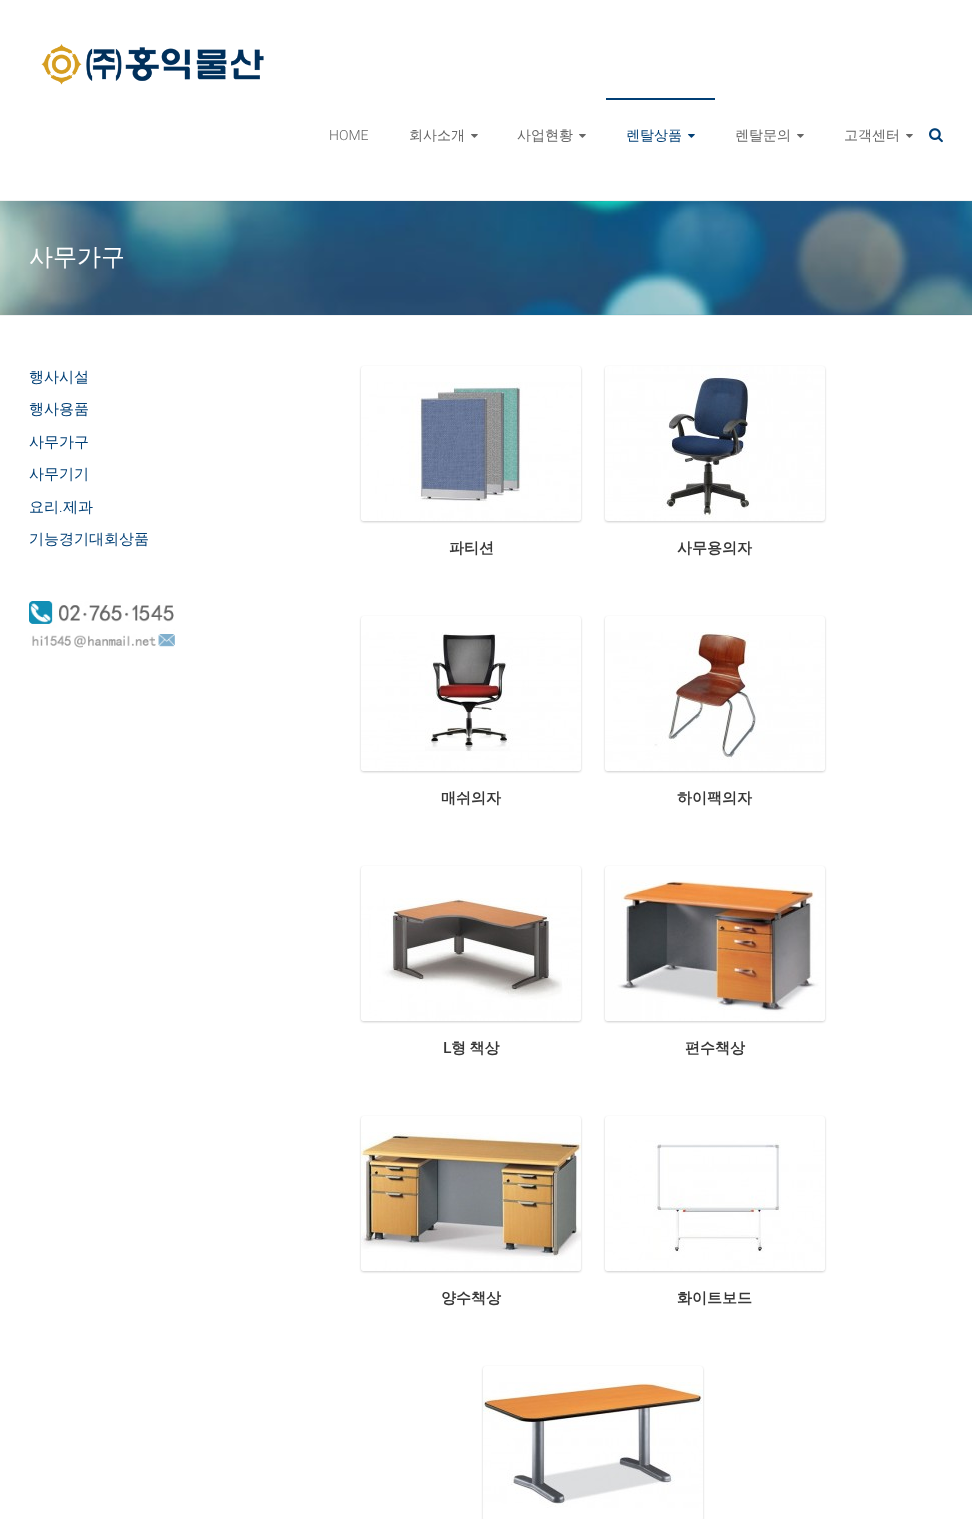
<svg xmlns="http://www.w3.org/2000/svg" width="972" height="1519">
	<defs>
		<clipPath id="clip1"><path d="M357 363H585V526H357ZM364 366H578C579.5 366 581 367.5 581 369V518C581 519.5 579.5 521 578 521H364C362.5 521 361 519.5 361 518V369C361 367.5 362.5 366 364 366Z" clip-rule="evenodd" /></clipPath>
		<clipPath id="clip2"><path d="M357 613H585V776H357ZM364 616H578C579.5 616 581 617.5 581 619V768C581 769.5 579.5 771 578 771H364C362.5 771 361 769.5 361 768V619C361 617.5 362.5 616 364 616Z" clip-rule="evenodd" /></clipPath>
		<clipPath id="clip3"><path d="M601 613H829V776H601ZM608 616H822C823.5 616 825 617.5 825 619V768C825 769.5 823.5 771 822 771H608C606.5 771 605 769.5 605 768V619C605 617.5 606.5 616 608 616Z" clip-rule="evenodd" /></clipPath>
		<clipPath id="clip4"><path d="M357 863H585V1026H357ZM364 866H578C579.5 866 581 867.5 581 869V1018C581 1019.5 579.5 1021 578 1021H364C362.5 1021 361 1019.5 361 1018V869C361 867.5 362.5 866 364 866Z" clip-rule="evenodd" /></clipPath>
		<clipPath id="clip5"><path d="M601 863H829V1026H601ZM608 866H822C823.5 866 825 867.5 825 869V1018C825 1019.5 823.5 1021 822 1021H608C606.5 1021 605 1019.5 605 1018V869C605 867.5 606.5 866 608 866Z" clip-rule="evenodd" /></clipPath>
		<clipPath id="clip6"><path d="M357 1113H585V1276H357ZM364 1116H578C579.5 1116 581 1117.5 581 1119V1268C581 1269.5 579.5 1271 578 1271H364C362.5 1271 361 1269.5 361 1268V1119C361 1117.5 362.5 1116 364 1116Z" clip-rule="evenodd" /></clipPath>
		<clipPath id="clip7"><path d="M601 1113H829V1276H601ZM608 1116H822C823.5 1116 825 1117.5 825 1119V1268C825 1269.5 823.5 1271 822 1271H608C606.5 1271 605 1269.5 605 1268V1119C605 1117.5 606.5 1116 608 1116Z" clip-rule="evenodd" /></clipPath>
		<clipPath id="clip8"><path d="M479 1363H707V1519H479ZM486 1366H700C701.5 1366 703 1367.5 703 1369V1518C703 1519.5 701.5 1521 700 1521H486C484.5 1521 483 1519.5 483 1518V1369C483 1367.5 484.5 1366 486 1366Z" clip-rule="evenodd" /></clipPath>
	</defs>
	<rect width="100%" height="100%" fill="#FFFFFF" />
	<rect x="0" y="200" width="972" height="1" fill="#F2F2F2" />
	<image x="41" y="44" width="223" height="41" href="assets/img1.png" />
	<text x="329" y="140" font-family="Roboto" font-size="14" font-weight="300" fill="#666666">HOME</text>
	<text x="409" y="140" font-family="WenQuanYi Zen Hei" font-size="14" font-weight="500" fill="#666666">회사소개</text>
	<image x="471" y="134" width="7" height="4" href="assets/img2.png" />
	<text x="517" y="140" font-family="WenQuanYi Zen Hei" font-size="14" font-weight="500" fill="#666666">사업현황</text>
	<image x="579" y="134" width="7" height="4" href="assets/img2.png" />
	<rect x="606" y="98" width="109" height="2" fill="#013F75" />
	<text x="626" y="140" font-family="WenQuanYi Zen Hei" font-size="14" font-weight="500" fill="#013F75">렌탈상품</text>
	<image x="688" y="134" width="7" height="4" href="assets/img3.png" />
	<text x="735" y="140" font-family="WenQuanYi Zen Hei" font-size="14" font-weight="500" fill="#666666">렌탈문의</text>
	<image x="797" y="134" width="7" height="4" href="assets/img2.png" />
	<text x="844" y="140" font-family="WenQuanYi Zen Hei" font-size="14" font-weight="500" fill="#666666">고객센터</text>
	<image x="906" y="134" width="7" height="4" href="assets/img2.png" />
	<image x="929" y="128" width="14" height="15" href="assets/img4.png" />
	<image x="0" y="201" width="972" height="114" href="assets/img5.png" />
	<rect x="0" y="315" width="972" height="1" fill="#F2F2F2" />
	<text x="29" y="265" font-family="WenQuanYi Zen Hei" font-size="24" font-weight="500" fill="#FFFFFF">사무가구</text>
	<g font-family="WenQuanYi Zen Hei" font-size="15" font-weight="500" fill="#013F75">
		<text x="29" y="382">행사시설</text>
		<text x="29" y="414">행사용품</text>
		<text x="29" y="447">사무가구</text>
		<text x="29" y="479">사무기기</text>
		<text x="29" y="512">요리</text>
	</g>
	<text x="59" y="512" font-family="Roboto" font-size="15" font-weight="300" fill="#013F75">.</text>
	<g font-family="WenQuanYi Zen Hei" font-size="15" font-weight="500" fill="#013F75">
		<text x="63" y="512">제과</text>
		<text x="29" y="544">기능경기대회상품</text>
	</g>
	<image x="29" y="601" width="146" height="47" href="assets/img6.png" />
	<g clip-path="url(#clip1)">
		<rect x="361" y="367" width="220" height="155" rx="3" fill="#000000" fill-opacity="0.2" filter="blur(1px)" />
	</g>
	<image x="361" y="382" width="220" height="139" href="assets/img7.png" />
	<text x="449" y="553" font-family="WenQuanYi Zen Hei" font-size="15" font-weight="700" fill="#373737">파티션</text>
	<rect x="605" y="367" width="220" height="155" rx="3" fill="#000000" fill-opacity="0.2" filter="blur(1px)" />
	<image x="605" y="366" width="220" height="155" href="assets/img8.png" />
	<text x="677" y="553" font-family="WenQuanYi Zen Hei" font-size="15" font-weight="700" fill="#373737">사무용의자</text>
	<g clip-path="url(#clip2)">
		<rect x="361" y="617" width="220" height="155" rx="3" fill="#000000" fill-opacity="0.2" filter="blur(1px)" />
	</g>
	<image x="361" y="632" width="220" height="139" href="assets/img9.png" />
	<text x="441" y="803" font-family="WenQuanYi Zen Hei" font-size="15" font-weight="700" fill="#373737">매쉬의자</text>
	<g clip-path="url(#clip3)">
		<rect x="605" y="617" width="220" height="155" rx="3" fill="#000000" fill-opacity="0.2" filter="blur(1px)" />
	</g>
	<image x="605" y="632" width="220" height="139" href="assets/img10.png" />
	<text x="677" y="803" font-family="WenQuanYi Zen Hei" font-size="15" font-weight="700" fill="#373737">하이팩의자</text>
	<g clip-path="url(#clip4)">
		<rect x="361" y="867" width="220" height="155" rx="3" fill="#000000" fill-opacity="0.2" filter="blur(1px)" />
	</g>
	<image x="361" y="898" width="220" height="123" href="assets/img11.png" />
	<text x="443" y="1053" font-family="Roboto" font-size="15" font-weight="700" fill="#373737">L</text>
	<text x="451" y="1053" word-spacing="-1" font-family="WenQuanYi Zen Hei" font-size="15" font-weight="700" fill="#373737">형 책상</text>
	<g clip-path="url(#clip5)">
		<rect x="605" y="867" width="220" height="155" rx="3" fill="#000000" fill-opacity="0.2" filter="blur(1px)" />
	</g>
	<image x="605" y="880" width="220" height="141" href="assets/img12.png" />
	<text x="685" y="1053" font-family="WenQuanYi Zen Hei" font-size="15" font-weight="700" fill="#373737">편수책상</text>
	<g clip-path="url(#clip6)">
		<rect x="361" y="1117" width="220" height="155" rx="3" fill="#000000" fill-opacity="0.2" filter="blur(1px)" />
	</g>
	<image x="361" y="1132" width="220" height="139" href="assets/img13.png" />
	<text x="441" y="1303" font-family="WenQuanYi Zen Hei" font-size="15" font-weight="700" fill="#373737">양수책상</text>
	<g clip-path="url(#clip7)">
		<rect x="605" y="1117" width="220" height="155" rx="3" fill="#000000" fill-opacity="0.2" filter="blur(1px)" />
	</g>
	<image x="605" y="1140" width="220" height="131" href="assets/img14.png" />
	<text x="677" y="1303" font-family="WenQuanYi Zen Hei" font-size="15" font-weight="700" fill="#373737">화이트보드</text>
	<g clip-path="url(#clip8)">
		<rect x="483" y="1367" width="220" height="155" rx="3" fill="#000000" fill-opacity="0.2" filter="blur(1px)" />
	</g>
	<image x="483" y="1382" width="220" height="126" href="assets/img15.png" />
</svg>
